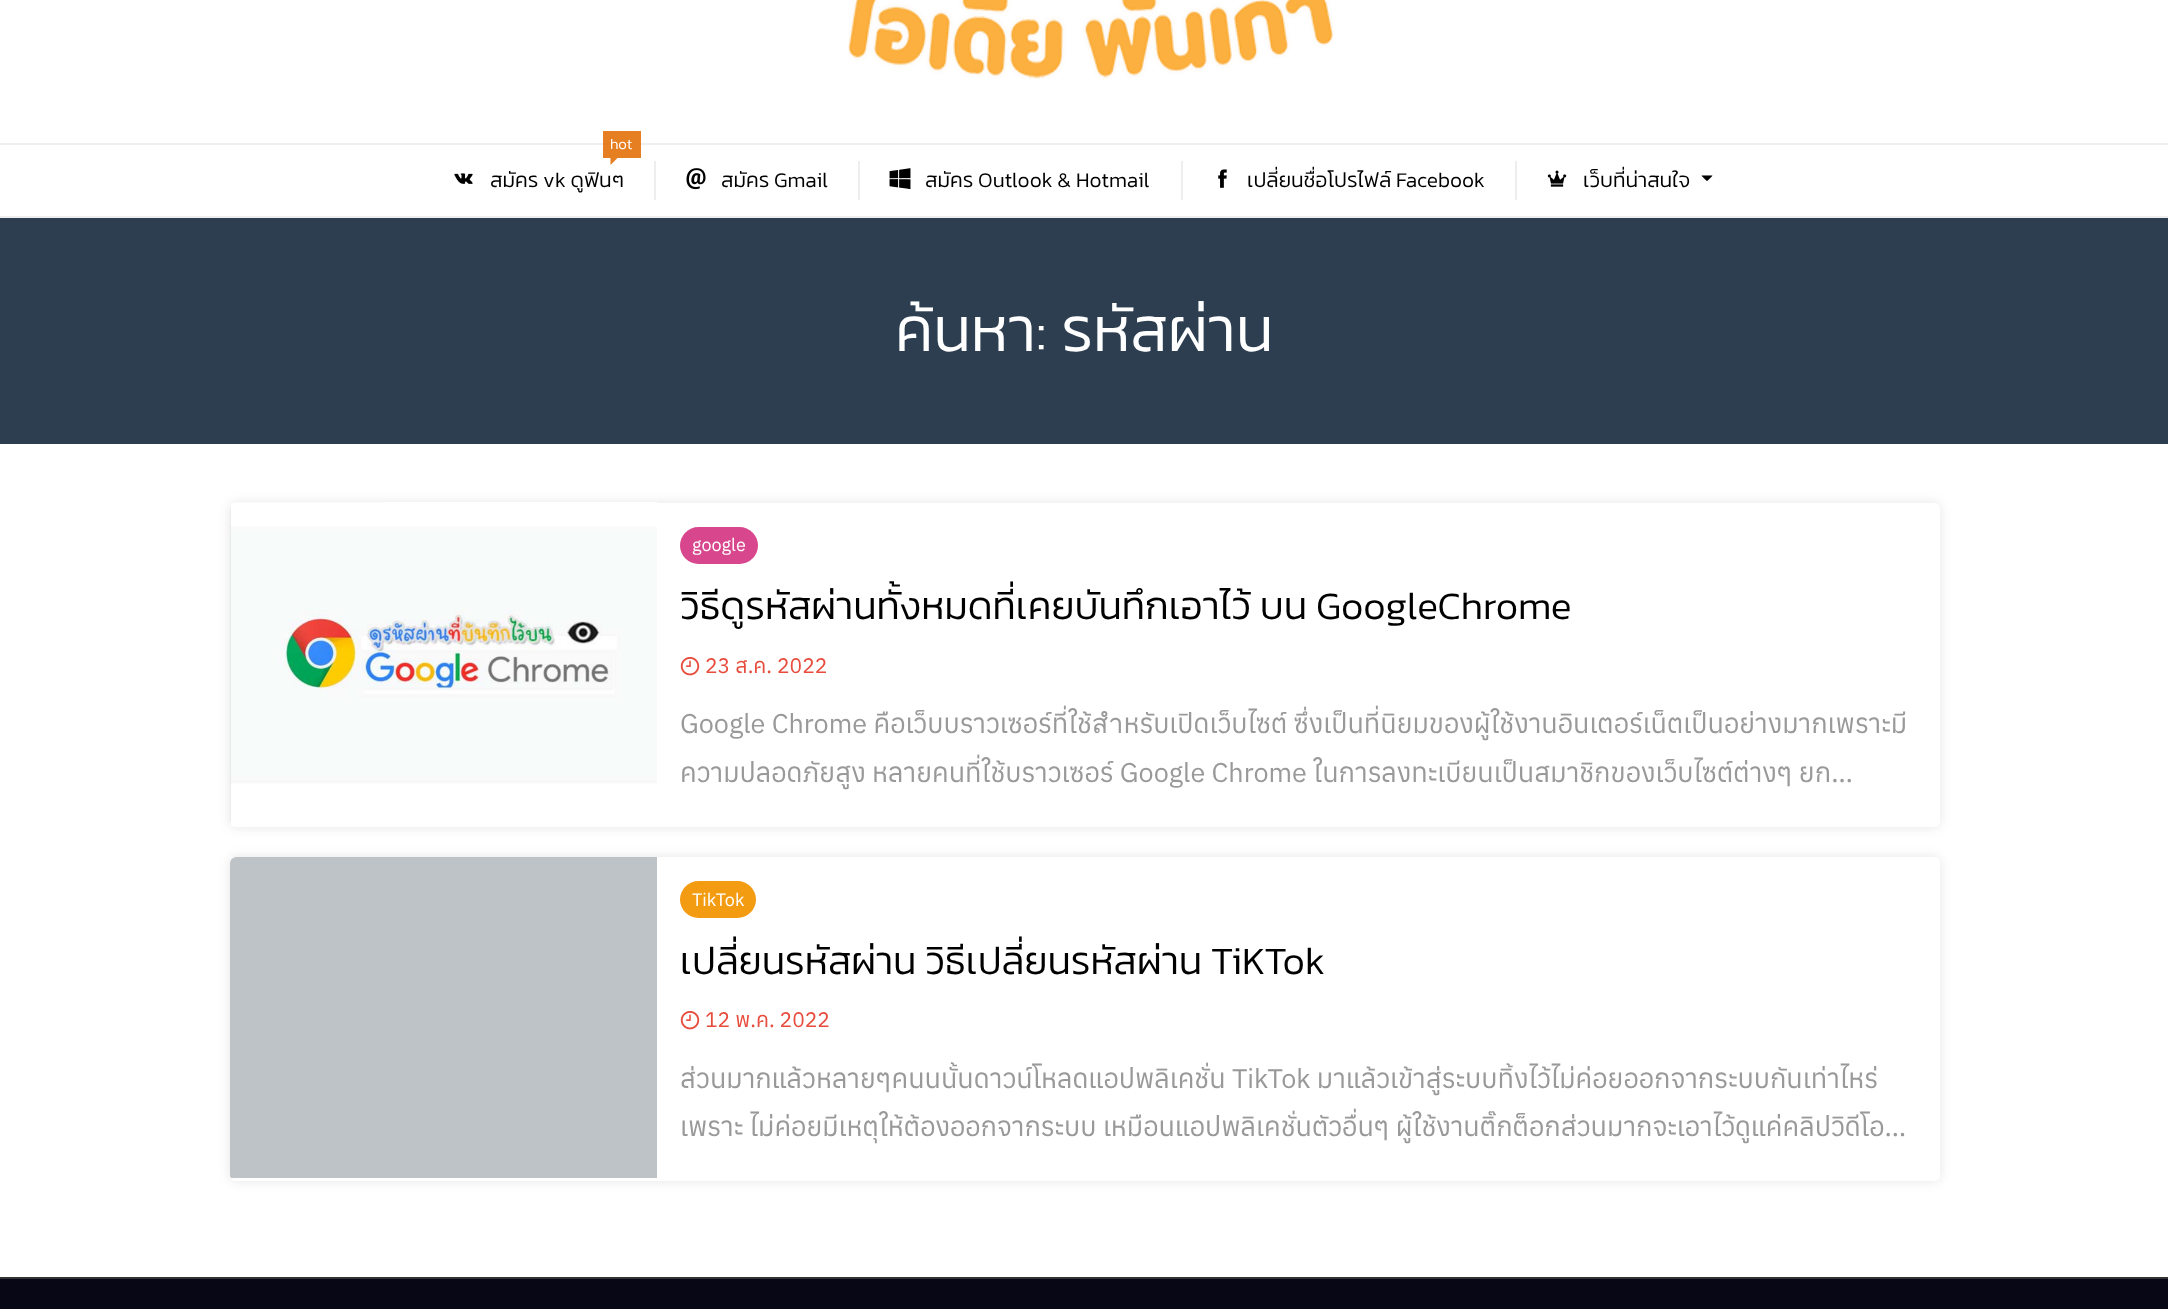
<svg xmlns="http://www.w3.org/2000/svg" width="2168" height="1309">
	<defs>
		<clipPath id="clip1"><path d="M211 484H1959V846H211ZM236 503H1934C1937.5 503 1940 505.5 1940 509V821C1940 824.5 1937.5 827 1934 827H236C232.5 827 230 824.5 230 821V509C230 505.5 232.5 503 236 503Z" clip-rule="evenodd" /></clipPath>
		<clipPath id="clip2"><rect x="230" y="503" width="1710" height="324" rx="6" /></clipPath>
		<clipPath id="clip3"><rect x="680" y="581" width="1237" height="51" /></clipPath>
		<clipPath id="clip4"><path d="M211 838H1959V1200H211ZM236 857H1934C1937.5 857 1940 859.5 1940 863V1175C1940 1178.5 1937.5 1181 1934 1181H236C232.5 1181 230 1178.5 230 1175V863C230 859.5 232.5 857 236 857Z" clip-rule="evenodd" /></clipPath>
		<clipPath id="clip5"><rect x="230" y="857" width="1710" height="324" rx="6" /></clipPath>
		<clipPath id="clip6"><rect x="680" y="1053" width="1237" height="98" /></clipPath>
	</defs>
	<rect width="100%" height="100%" fill="#FFFFFF" />
	<image x="848" y="0" width="486" height="79" href="assets/img1.png" />
	<rect x="0" y="143" width="2168" height="2" fill="#EEEEEE" />
	<rect x="0" y="216" width="2168" height="2" fill="#EEEEEE" />
	<rect x="603" y="131" width="38" height="27" fill="#E67E22" />
	<text x="610" y="149" font-family="Kanit" font-size="15" font-weight="300" fill="#FFFFFF">hot</text>
	<path d="M610.5 157.5H618L610.5 165Z" fill="#E67E22" />
	<rect x="654" y="161" width="2" height="39" fill="#EEEEEE" />
	<image x="454" y="173" width="19" height="11" href="assets/img2.png" />
	<text x="490" y="187" font-family="Kanit" font-size="21" font-weight="300" fill="#000000">สมัคร vk ดูฟินๆ</text>
	<rect x="858" y="161" width="2" height="39" fill="#EEEEEE" />
	<image x="686" y="168" width="20" height="22" href="assets/img3.png" />
	<text x="721" y="187" font-family="Kanit" font-size="21" font-weight="300" fill="#000000">สมัคร Gmail</text>
	<rect x="1181" y="161" width="2" height="39" fill="#EEEEEE" />
	<image x="889" y="168" width="22" height="22" href="assets/img4.png" />
	<text x="925" y="187" font-family="Kanit" font-size="21" font-weight="300" fill="#000000">สมัคร Outlook &amp; Hotmail</text>
	<rect x="1515" y="161" width="2" height="39" fill="#EEEEEE" />
	<image x="1218" y="169" width="9" height="19" href="assets/img5.png" />
	<text x="1247" y="187" font-family="Kanit" font-size="21" font-weight="300" fill="#000000">เปลี่ยนชื่อโปรไฟล์ Facebook</text>
	<image x="1547" y="170" width="20" height="17" href="assets/img6.png" />
	<text x="1583" y="187" font-family="Kanit" font-size="21" font-weight="300" fill="#000000">เว็บที่น่าสนใจ</text>
	<image x="1701" y="175" width="12" height="6" href="assets/img7.png" />
	<rect x="0" y="218" width="2168" height="226" fill="#2C3E50" />
	<text x="895" y="351" font-family="Kanit" font-size="63" font-weight="300" fill="#FFFFFF">ค้นหา: รหัสผ่าน</text>
	<g clip-path="url(#clip1)">
		<rect x="230" y="503" width="1710" height="324" rx="6" fill="#000000" fill-opacity="0.1" filter="blur(6px)" />
	</g>
	<g clip-path="url(#clip2)">
		<path d="M236 503H657V822H230V509C230 505.5 232.5 503 236 503Z" fill="#BDC3C7" />
	</g>
	<image x="230" y="502" width="427" height="320" href="assets/img8.png" />
	<rect x="680" y="527" width="78" height="37" rx="18.5" fill="#D8478D" />
	<text x="692" y="551" font-family="anuphan" font-size="18" fill="#FFFFFF">google</text>
	<g clip-path="url(#clip3)">
		<text x="680" y="619" font-family="Kanit" font-size="39" font-weight="300" fill="#000000">วิธีดูรหัสผ่านทั้งหมดที่เคยบันทึกเอาไว้ บน GoogleChrome</text>
	</g>
	<image x="680" y="657" width="20" height="19" href="assets/img9.png" />
	<text x="705" y="673" font-family="anuphan" font-size="21" fill="#E74C3C">23 ส.ค. 2022</text>
	<g font-family="anuphan" font-size="27" fill="#999999">
		<text x="680" y="733">Google Chrome คือเว็บบราวเซอร์ที่ใช้สำหรับเปิดเว็บไซต์ ซึ่งเป็นที่นิยมของผู้ใช้งานอินเตอร์เน็ตเป็นอย่างมากเพราะมี</text>
		<text x="680" y="782">ความปลอดภัยสูง หลายคนที่ใช้บราวเซอร์ Google Chrome ในการลงทะเบียนเป็นสมาชิกของเว็บไซต์ต่างๆ ยก…</text>
	</g>
	<g clip-path="url(#clip4)">
		<rect x="230" y="857" width="1710" height="324" rx="6" fill="#000000" fill-opacity="0.1" filter="blur(6px)" />
	</g>
	<g clip-path="url(#clip5)">
		<path d="M236 857H657V1178H230V863C230 859.5 232.5 857 236 857Z" fill="#BDC3C7" />
	</g>
	<rect x="680" y="881" width="76" height="37" rx="18.5" fill="#F39C12" />
	<text x="692" y="906" font-family="anuphan" font-size="18" fill="#FFFFFF">TikTok</text>
	<text x="680" y="974" font-family="Kanit" font-size="39" font-weight="300" fill="#000000">เปลี่ยนรหัสผ่าน วิธีเปลี่ยนรหัสผ่าน TiKTok</text>
	<image x="680" y="1011" width="20" height="19" href="assets/img9.png" />
	<text x="705" y="1027" font-family="anuphan" font-size="21" fill="#E74C3C">12 พ.ค. 2022</text>
	<g clip-path="url(#clip6)">
		<text x="680" y="1088" font-family="anuphan" font-size="27" fill="#999999">ส่วนมากแล้วหลายๆคนนนั้นดาวน์โหลดแอปพลิเคชั่น TikTok มาแล้วเข้าสู่ระบบทิ้งไว้ไม่ค่อยออกจากระบบกันเท่าไหร่</text>
	</g>
	<text x="680" y="1136" font-family="anuphan" font-size="27" fill="#999999">เพราะ ไม่ค่อยมีเหตุให้ต้องออกจากระบบ เหมือนแอปพลิเคชั่นตัวอื่นๆ ผู้ใช้งานติ๊กต็อกส่วนมากจะเอาไว้ดูแค่คลิปวิดีโอ…</text>
	<rect x="0" y="1279" width="2168" height="30" fill="#070716" />
	<rect x="0" y="1277" width="2168" height="2" fill="#333333" />
</svg>
